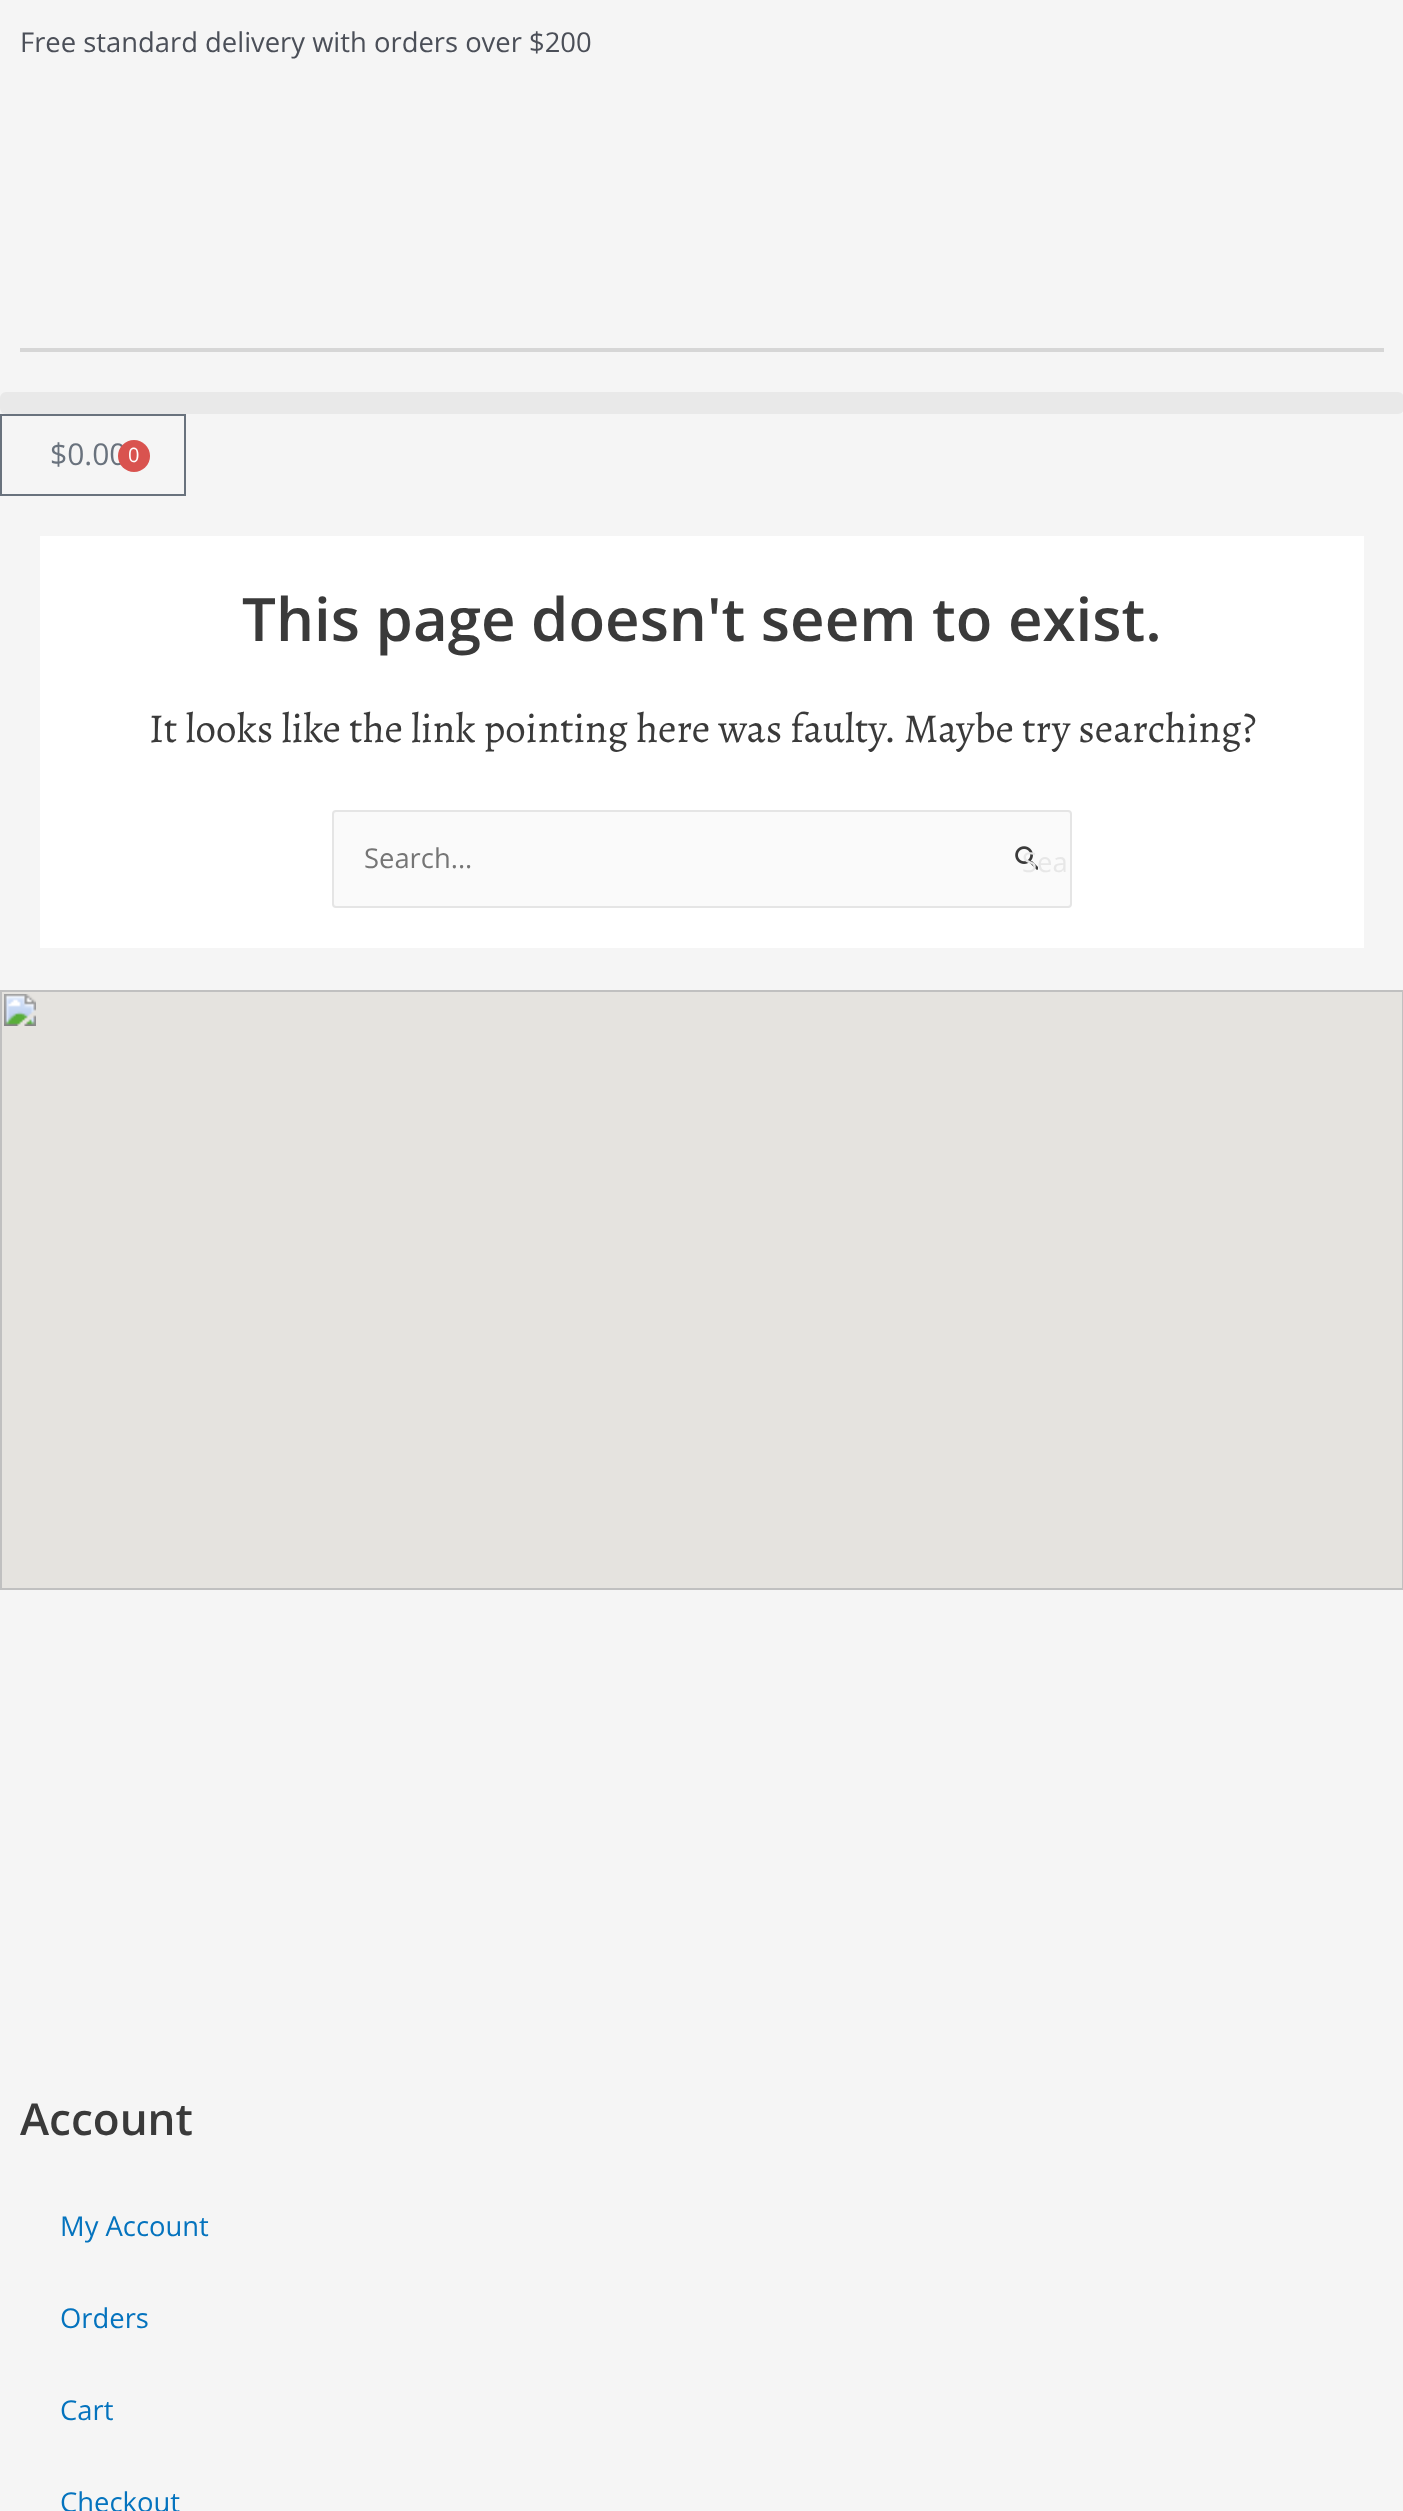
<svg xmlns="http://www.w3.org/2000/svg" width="1403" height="2511">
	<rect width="100%" height="100%" fill="#F5F5F5" />
	<text x="20" y="52" font-family="Open Sans" font-size="27.4" fill="#4B4F58">Free standard delivery with orders over $200</text>
	<rect x="20" y="348" width="1364" height="4" fill="#D6D6D6" />
	<rect x="0" y="392" width="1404" height="22" rx="6" fill="#E9E9E9" />
	<rect x="1" y="415" width="184" height="80" fill="none" stroke="#69727D" stroke-width="2" />
	<text x="50" y="465" font-family="Open Sans" font-size="30" fill="#69727D">$0.00</text>
	<circle cx="134" cy="456" r="16" fill="#D9534F" />
	<text x="128" y="462" font-family="Open Sans" font-size="20" fill="#FFFFFF">0</text>
	<rect x="40" y="536" width="1324" height="412" fill="#FFFFFF" />
	<text x="242" y="641" font-family="Open Sans" font-size="60" font-weight="600" fill="#3A3A3A">This page doesn't seem to exist.</text>
	<text x="149" y="742" font-family="Alegreya" font-size="41.05" fill="#3A3A3A">It looks like the link pointing here was faulty. Maybe try searching?</text>
	<rect x="333" y="811" width="738" height="96" rx="3" fill="#FAFAFA" stroke="#E5E5E5" stroke-width="2" />
	<text x="364" y="868" font-family="Open Sans" font-size="27.4" fill="#757575">Search...</text>
	<image x="1015" y="846" width="23" height="24" href="assets/img1.png" />
	<text x="1022" y="872" font-family="Open Sans" font-size="27.4" fill="#E7E7E7">Sea</text>
	<image x="0" y="990" width="1403" height="600" href="assets/img2.png" />
	<text x="20" y="2135" font-family="Open Sans" font-size="44" font-weight="600" fill="#3A3A3A">Account</text>
	<g font-family="Open Sans" font-size="27.4" fill="#0473BE">
		<text x="60" y="2236">My Account</text>
		<text x="60" y="2328">Orders</text>
		<text x="60" y="2420">Cart</text>
		<text x="60" y="2512">Checkout</text>
	</g>
</svg>
